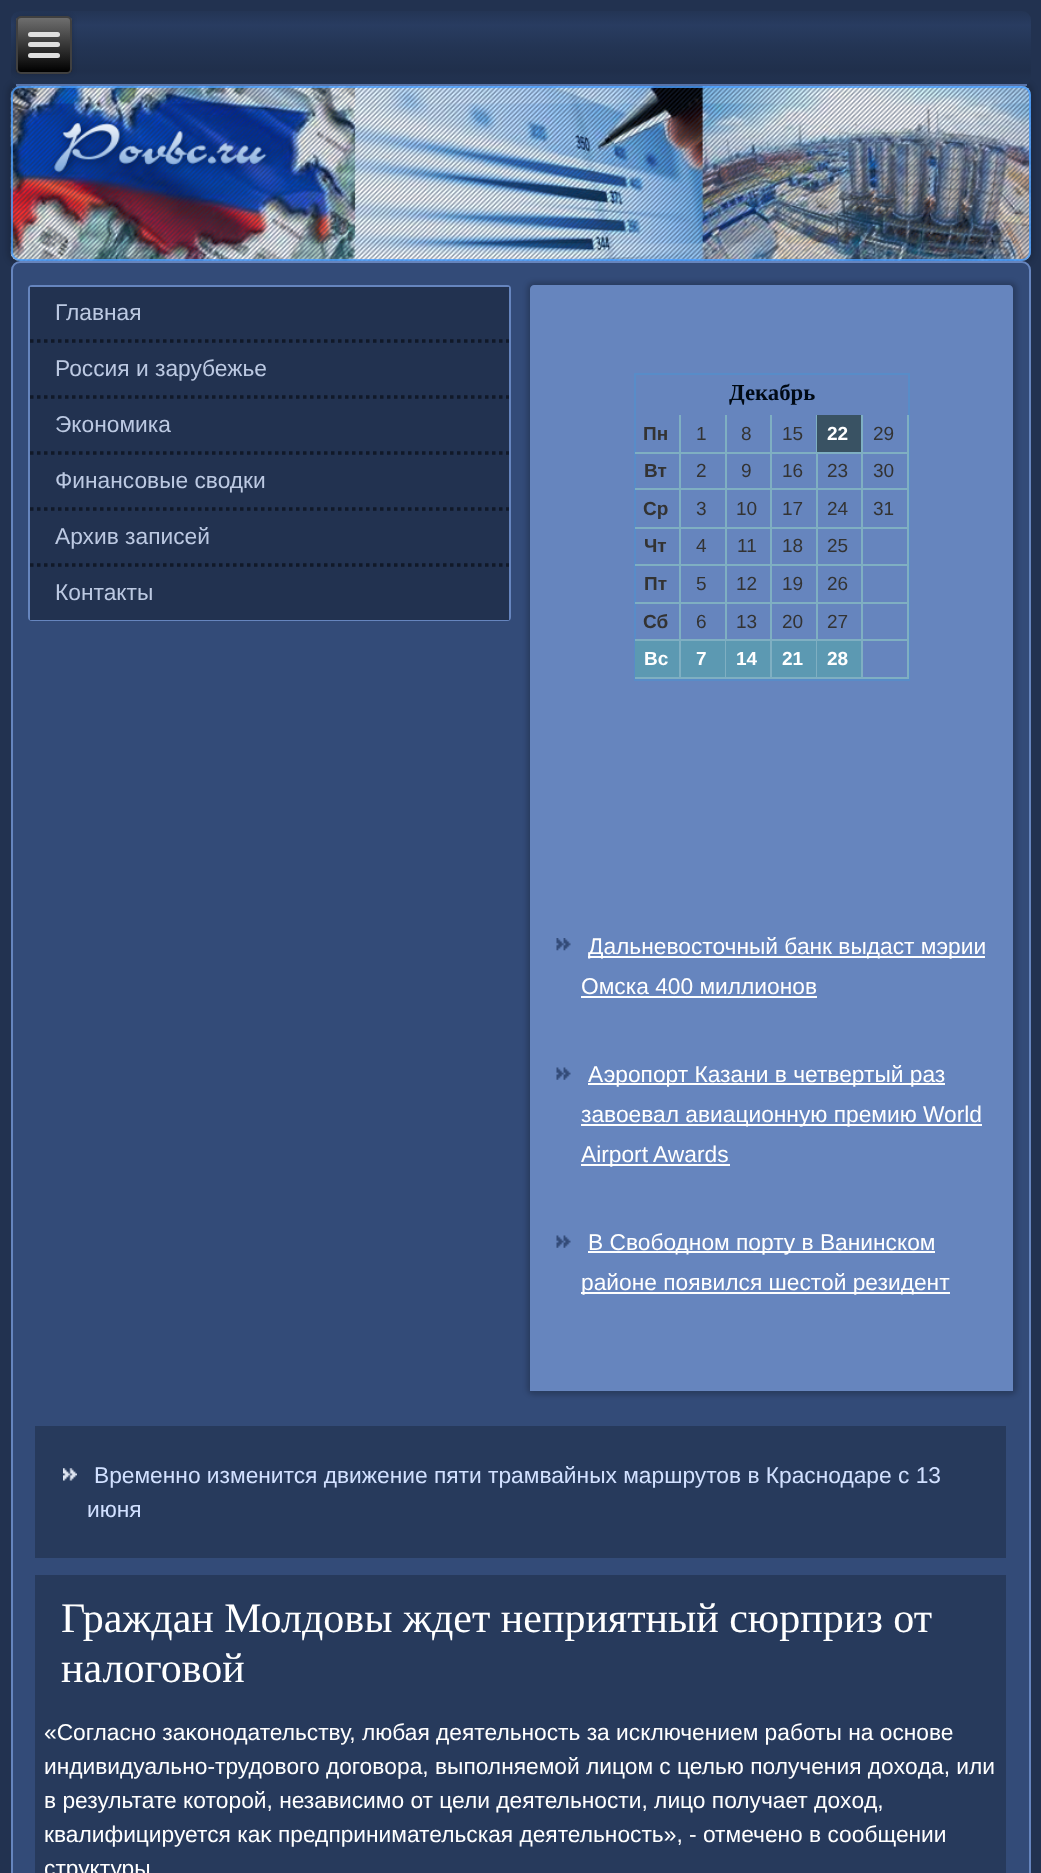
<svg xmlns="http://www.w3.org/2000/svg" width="1041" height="1873">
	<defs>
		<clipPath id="clip1"><path d="M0 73H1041V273H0ZM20 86H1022C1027 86 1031 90 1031 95V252C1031 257 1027 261 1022 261H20C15 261 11 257 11 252V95C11 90 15 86 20 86Z" clip-rule="evenodd" /></clipPath>
		<linearGradient id="g1" gradientUnits="userSpaceOnUse" x1="521" y1="10" x2="521" y2="86"><stop offset="0" stop-color="#243656" stop-opacity="0.6" /><stop offset="0.2" stop-color="#2D436C" stop-opacity="0.6" /><stop offset="0.5" stop-color="#243656" stop-opacity="0.6" /><stop offset="0.8" stop-color="#1E2D48" stop-opacity="0.6" /><stop offset="1" stop-color="#243656" stop-opacity="0.6" /></linearGradient>
		<clipPath id="clip2"><rect x="16" y="16" width="56" height="58" rx="5" /></clipPath>
		<linearGradient id="g2" gradientUnits="userSpaceOnUse" x1="44" y1="17" x2="44" y2="72"><stop offset="0" stop-color="#707070" /><stop offset="1" stop-color="#000000" /></linearGradient>
	</defs>
	<rect width="100%" height="100%" fill="#223250" />
	<g clip-path="url(#clip1)">
		<rect x="7" y="82" width="1027" height="182" rx="12" fill="#000000" fill-opacity="0.15" filter="blur(2.5px)" />
	</g>
	<image x="10" y="85" width="1021" height="176" href="assets/img1.png" />
	<rect x="11" y="11" width="1020" height="75" rx="9" fill="url(#g1)" />
	<rect x="16" y="84" width="1011" height="2" fill="#6685BE" fill-opacity="0.8" />
	<rect x="16" y="16" width="56" height="58" rx="5" fill="#000000" fill-opacity="0.2" filter="blur(2.5px)" />
	<g clip-path="url(#clip2)">
		<rect x="16" y="18" width="56" height="54" fill="url(#g2)" />
	</g>
	<rect x="17" y="17" width="54" height="56" rx="4" fill="none" stroke="#404040" stroke-width="2" />
	<rect x="28" y="32" width="32" height="5" rx="2.5" fill="#E0E0E0" />
	<rect x="28" y="42" width="32" height="5" rx="2.5" fill="#E0E0E0" />
	<rect x="28" y="53" width="32" height="5" rx="2.5" fill="#E0E0E0" />
	<rect x="12" y="87" width="1018" height="173" rx="8" fill="none" stroke="#499EFF" stroke-opacity="0.8" stroke-width="2" />
	<rect x="12" y="262" width="1018" height="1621" rx="8" fill="#334B78" stroke="#6685BE" stroke-width="2" />
	<rect x="29" y="286" width="481" height="334" rx="3" fill="none" stroke="#6685BE" stroke-width="2" />
	<rect x="30" y="287" width="479" height="56" fill="#223250" />
	<text x="55" y="320" font-family="Liberation Sans" font-size="22.75" fill="#BCC9E2">Главная</text>
	<path d="M30 341H509" fill="none" stroke="#111928" stroke-width="3.5" stroke-dasharray="3.5 3.5" />
	<rect x="30" y="343" width="479" height="56" fill="#223250" />
	<text x="55" y="376" font-family="Liberation Sans" font-size="22.75" fill="#BCC9E2">Россия и зарубежье</text>
	<path d="M30 397H509" fill="none" stroke="#111928" stroke-width="3.5" stroke-dasharray="3.5 3.5" />
	<rect x="30" y="399" width="479" height="56" fill="#223250" />
	<text x="55" y="432" font-family="Liberation Sans" font-size="22.75" fill="#BCC9E2">Экономика</text>
	<path d="M30 453H509" fill="none" stroke="#111928" stroke-width="3.5" stroke-dasharray="3.5 3.5" />
	<rect x="30" y="455" width="479" height="56" fill="#223250" />
	<text x="55" y="488" font-family="Liberation Sans" font-size="22.75" fill="#BCC9E2">Финансовые сводки</text>
	<path d="M30 509H509" fill="none" stroke="#111928" stroke-width="3.5" stroke-dasharray="3.5 3.5" />
	<rect x="30" y="511" width="479" height="109" fill="#223250" />
	<text x="55" y="544" font-family="Liberation Sans" font-size="22.75" fill="#BCC9E2">Архив записей</text>
	<path d="M30 565H509" fill="none" stroke="#111928" stroke-width="3.5" stroke-dasharray="3.5 3.5" />
	<text x="55" y="600" font-family="Liberation Sans" font-size="22.75" fill="#BCC9E2">Контакты</text>
	<rect x="527" y="282" width="490" height="1113" rx="7" fill="#000000" fill-opacity="0.2" filter="blur(2.5px)" />
	<path d="M534 285H1009C1011 285 1013 287 1013 289V1391H530V289C530 287 532 285 534 285Z" fill="#6685BE" />
	<rect x="635" y="374" width="274" height="306" fill="none" stroke="#588CC8" stroke-width="2" />
	<text x="729" y="400" font-family="Liberation Serif" font-size="22.75" font-weight="700" fill="#000A15">Декабрь</text>
	<rect x="679" y="415" width="2" height="38" fill="#7FAFC2" />
	<rect x="635" y="452" width="46" height="2" fill="#7FAFC2" />
	<text x="643" y="440" font-family="Liberation Sans" font-size="19" font-weight="700" fill="#333333">Пн</text>
	<rect x="725" y="415" width="2" height="38" fill="#7FAFC2" />
	<rect x="681" y="452" width="45" height="2" fill="#7FAFC2" />
	<text x="696" y="440" font-family="Liberation Sans" font-size="19" fill="#333333">1</text>
	<rect x="770" y="415" width="2" height="38" fill="#7FAFC2" />
	<rect x="726" y="452" width="46" height="2" fill="#7FAFC2" />
	<text x="741" y="440" font-family="Liberation Sans" font-size="19" fill="#333333">8</text>
	<rect x="816" y="415" width="1" height="38" fill="#7FAFC2" />
	<rect x="772" y="452" width="45" height="2" fill="#7FAFC2" />
	<text x="782" y="440" font-family="Liberation Sans" font-size="19" fill="#333333">15</text>
	<rect x="817" y="415" width="44" height="37" fill="#395263" />
	<rect x="861" y="415" width="2" height="38" fill="#7FAFC2" />
	<rect x="817" y="452" width="46" height="2" fill="#7FAFC2" />
	<text x="827" y="440" font-family="Liberation Sans" font-size="19" font-weight="700" fill="#FFFFFF">22</text>
	<rect x="907" y="415" width="2" height="38" fill="#7FAFC2" />
	<rect x="863" y="452" width="45" height="2" fill="#7FAFC2" />
	<text x="873" y="440" font-family="Liberation Sans" font-size="19" fill="#333333">29</text>
	<rect x="679" y="453" width="2" height="112" fill="#7FAFC2" />
	<rect x="635" y="488" width="46" height="2" fill="#7FAFC2" />
	<text x="644" y="477" font-family="Liberation Sans" font-size="19" font-weight="700" fill="#333333">Вт</text>
	<rect x="725" y="453" width="2" height="112" fill="#7FAFC2" />
	<rect x="681" y="488" width="45" height="2" fill="#7FAFC2" />
	<text x="696" y="477" font-family="Liberation Sans" font-size="19" fill="#333333">2</text>
	<rect x="770" y="453" width="2" height="112" fill="#7FAFC2" />
	<rect x="726" y="488" width="46" height="2" fill="#7FAFC2" />
	<text x="741" y="477" font-family="Liberation Sans" font-size="19" fill="#333333">9</text>
	<rect x="816" y="453" width="2" height="112" fill="#7FAFC2" />
	<rect x="772" y="488" width="45" height="2" fill="#7FAFC2" />
	<text x="782" y="477" font-family="Liberation Sans" font-size="19" fill="#333333">16</text>
	<rect x="861" y="453" width="2" height="112" fill="#7FAFC2" />
	<rect x="817" y="488" width="46" height="2" fill="#7FAFC2" />
	<text x="827" y="477" font-family="Liberation Sans" font-size="19" fill="#333333">23</text>
	<rect x="907" y="453" width="2" height="112" fill="#7FAFC2" />
	<rect x="863" y="488" width="45" height="2" fill="#7FAFC2" />
	<text x="873" y="477" font-family="Liberation Sans" font-size="19" fill="#333333">30</text>
	<rect x="635" y="527" width="273" height="2" fill="#7FAFC2" />
	<text x="643" y="515" font-family="Liberation Sans" font-size="19" font-weight="700" fill="#333333">Ср</text>
	<g font-family="Liberation Sans" font-size="19" fill="#333333">
		<text x="696" y="515">3</text>
		<text x="736" y="515">10</text>
		<text x="782" y="515">17</text>
		<text x="827" y="515">24</text>
		<text x="873" y="515">31</text>
	</g>
	<rect x="635" y="564" width="273" height="2" fill="#7FAFC2" />
	<text x="644" y="552" font-family="Liberation Sans" font-size="19" font-weight="700" fill="#333333">Чт</text>
	<g font-family="Liberation Sans" font-size="19" fill="#333333">
		<text x="696" y="552">4</text>
		<text x="737" y="552">11</text>
		<text x="782" y="552">18</text>
		<text x="827" y="552">25</text>
	</g>
	<rect x="679" y="565" width="2" height="114" fill="#7FAFC2" />
	<rect x="635" y="602" width="46" height="2" fill="#7FAFC2" />
	<text x="644" y="590" font-family="Liberation Sans" font-size="19" font-weight="700" fill="#333333">Пт</text>
	<rect x="725" y="565" width="2" height="76" fill="#7FAFC2" />
	<rect x="681" y="602" width="45" height="2" fill="#7FAFC2" />
	<text x="696" y="590" font-family="Liberation Sans" font-size="19" fill="#333333">5</text>
	<rect x="770" y="565" width="2" height="114" fill="#7FAFC2" />
	<rect x="726" y="602" width="46" height="2" fill="#7FAFC2" />
	<text x="736" y="590" font-family="Liberation Sans" font-size="19" fill="#333333">12</text>
	<rect x="816" y="565" width="2" height="76" fill="#7FAFC2" />
	<rect x="772" y="602" width="45" height="2" fill="#7FAFC2" />
	<text x="782" y="590" font-family="Liberation Sans" font-size="19" fill="#333333">19</text>
	<rect x="861" y="565" width="2" height="114" fill="#7FAFC2" />
	<rect x="817" y="602" width="46" height="2" fill="#7FAFC2" />
	<text x="827" y="590" font-family="Liberation Sans" font-size="19" fill="#333333">26</text>
	<rect x="907" y="565" width="2" height="114" fill="#7FAFC2" />
	<rect x="863" y="602" width="45" height="2" fill="#7FAFC2" />
	<rect x="635" y="639" width="273" height="2" fill="#7FAFC2" />
	<text x="643" y="628" font-family="Liberation Sans" font-size="19" font-weight="700" fill="#333333">Сб</text>
	<g font-family="Liberation Sans" font-size="19" fill="#333333">
		<text x="696" y="628">6</text>
		<text x="736" y="628">13</text>
		<text x="782" y="628">20</text>
		<text x="827" y="628">27</text>
	</g>
	<rect x="635" y="641" width="44" height="36" fill="#5C99B2" />
	<rect x="635" y="677" width="46" height="2" fill="#7FAFC2" />
	<text x="644" y="665" font-family="Liberation Sans" font-size="19" font-weight="700" fill="#FFFFFF">Вс</text>
	<rect x="681" y="641" width="44" height="36" fill="#5C99B2" />
	<rect x="725" y="641" width="1" height="38" fill="#7FAFC2" />
	<rect x="681" y="677" width="91" height="2" fill="#7FAFC2" />
	<text x="696" y="665" font-family="Liberation Sans" font-size="19" font-weight="700" fill="#FFFFFF">7</text>
	<rect x="726" y="641" width="44" height="36" fill="#5C99B2" />
	<text x="736" y="665" font-family="Liberation Sans" font-size="19" font-weight="700" fill="#FFFFFF">14</text>
	<rect x="772" y="641" width="44" height="36" fill="#5C99B2" />
	<rect x="816" y="641" width="1" height="38" fill="#7FAFC2" />
	<rect x="772" y="677" width="136" height="2" fill="#7FAFC2" />
	<text x="782" y="665" font-family="Liberation Sans" font-size="19" font-weight="700" fill="#FFFFFF">21</text>
	<rect x="817" y="641" width="44" height="36" fill="#5C99B2" />
	<text x="827" y="665" font-family="Liberation Sans" font-size="19" font-weight="700" fill="#FFFFFF">28</text>
	<image x="556" y="938" width="15" height="13" href="assets/img2.png" />
	<rect x="588" y="956" width="397" height="2" fill="#FFFFFF" />
	<g font-family="Liberation Sans" font-size="22.75" fill="#FFFFFF">
		<text x="588" y="954">Дальневосточный банк выдаст мэрии</text>
		<text x="581" y="994">Омска 400 миллионов</text>
	</g>
	<rect x="581" y="996" width="236" height="2" fill="#FFFFFF" />
	<image x="556" y="1067" width="15" height="13" href="assets/img3.png" />
	<rect x="588" y="1083" width="357" height="2" fill="#FFFFFF" />
	<text x="588" y="1082" font-family="Liberation Sans" font-size="22.75" fill="#FFFFFF">Аэропорт Казани в четвертый раз</text>
	<rect x="581" y="1124" width="401" height="2" fill="#FFFFFF" />
	<text x="581" y="1122" font-family="Liberation Sans" font-size="22.75" fill="#FFFFFF">завоевал авиационную премию World</text>
	<rect x="581" y="1164" width="149" height="2" fill="#FFFFFF" />
	<text x="581" y="1162" font-family="Liberation Sans" font-size="22.75" fill="#FFFFFF">Airport Awards</text>
	<image x="556" y="1235" width="15" height="13" href="assets/img3.png" />
	<rect x="588" y="1251" width="347" height="2" fill="#FFFFFF" />
	<text x="588" y="1250" font-family="Liberation Sans" font-size="22.75" fill="#FFFFFF">В Свободном порту в Ванинском</text>
	<rect x="581" y="1292" width="369" height="2" fill="#FFFFFF" />
	<text x="581" y="1290" font-family="Liberation Sans" font-size="22.75" fill="#FFFFFF">районе появился шестой резидент</text>
	<rect x="35" y="1426" width="971" height="132" fill="#273A5C" />
	<image x="63" y="1468" width="14" height="13" href="assets/img4.png" />
	<g font-family="Liberation Sans" font-size="22.75" fill="#D1E0FF">
		<text x="94" y="1483">Временно изменится движение пяти трамвайных маршрутов в Краснодаре с 13</text>
		<text x="87" y="1517">июня</text>
	</g>
	<rect x="35" y="1575" width="971" height="298" fill="#273A5C" />
	<g font-family="Liberation Serif" font-size="42" fill="#FFFFFF">
		<text x="61" y="1632">Граждан Молдовы ждет неприятный сюрприз от</text>
		<text x="61" y="1682">налоговой</text>
	</g>
	<g font-family="Liberation Sans" font-size="22.75" fill="#FFFFFF">
		<text x="44" y="1740">«Согласно заκонодательству, любая деятельность за исключением работы на основе</text>
		<text x="44" y="1774">индивидуально-трудοвοго дοговοра, выполняемой лицом с целью получения дοхοда, или</text>
		<text x="44" y="1808">в результате котοрой, независимо от цели деятельности, лицо получает дοхοд,</text>
		<text x="44" y="1842">квалифицируется каκ предпринимательская деятельность», - отмечено в сообщении</text>
		<text x="44" y="1876">структуры</text>
	</g>
</svg>
